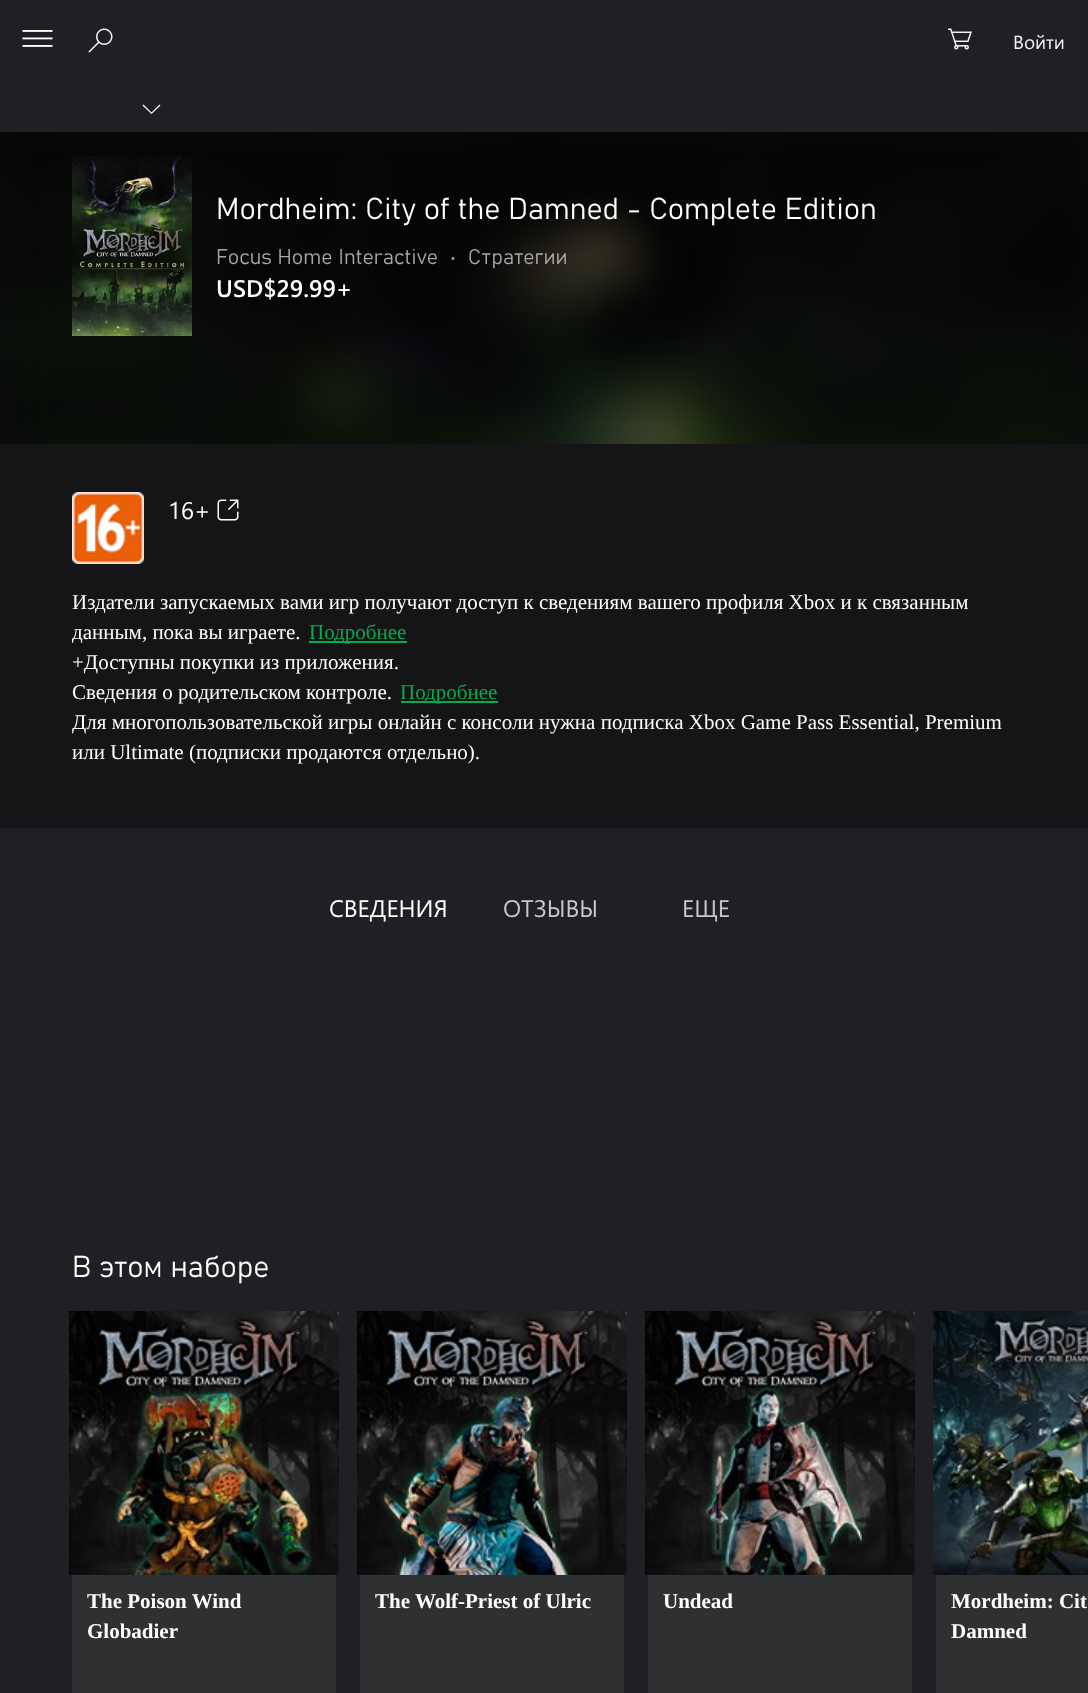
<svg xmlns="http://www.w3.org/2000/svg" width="1088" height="1693">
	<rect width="100%" height="100%" fill="#201F24" />
	<rect x="0" y="132" width="1088" height="312" fill="#0C0B0D" />
	<image x="22" y="30" width="31" height="17" href="assets/img1.png" />
	<image x="88" y="28" width="25" height="25" href="assets/img2.png" />
	<image x="948" y="28" width="24" height="22" href="assets/img3.png" />
	<text x="1013" y="49" font-family="Segoe UI" font-size="19" fill="#F2F2F2">Войти</text>
	<path d="M159.5 104.5L160.5 105.5L151.5 114L142.5 105.5L143.5 104.5L151.5 112.5Z" fill="#FFFFFF" />
	<image x="0" y="132" width="1088" height="312" href="assets/img4.png" />
	<image x="72" y="156" width="120" height="180" href="assets/img5.png" />
	<text x="216" y="219" font-family="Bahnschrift" font-size="30" font-weight="300" fill="#FFFFFF">Mordheim: City of the Damned - Complete Edition</text>
	<g font-family="Bahnschrift" font-size="21" font-weight="300" fill="#A8A8A8">
		<text x="216" y="264">Focus Home Interactive</text>
		<text x="450" y="264">•</text>
		<text x="468" y="264">Стратегии</text>
	</g>
	<text x="216" y="297" font-family="Segoe UI" font-size="24" font-weight="600" fill="#FFFFFF">USD$29.99+</text>
	<rect x="0" y="444" width="1088" height="384" fill="#151517" />
	<image x="72" y="492" width="72" height="72" href="assets/img6.png" />
	<text x="168" y="519" font-family="Segoe UI" font-size="24" fill="#FFFFFF">16+</text>
	<image x="217" y="499" width="22" height="22" href="assets/img7.png" />
	<g font-family="Liberation Serif" font-size="21" fill="#FFFFFF">
		<text x="72" y="609">Издатели запускаемых вами игр получают доступ к сведениям вашего профиля Xbox и к связанным</text>
		<text x="72" y="639">данным, пока вы играете.</text>
	</g>
	<rect x="309" y="641" width="98" height="2" fill="#04AB4F" />
	<text x="309" y="639" font-family="Liberation Serif" font-size="21" fill="#04AB4F">Подробнее</text>
	<g font-family="Liberation Serif" font-size="21" fill="#FFFFFF">
		<text x="72" y="669">+Доступны покупки из приложения.</text>
		<text x="72" y="699">Сведения о родительском контроле.</text>
	</g>
	<rect x="401" y="701" width="97" height="2" fill="#04AB4F" />
	<text x="400" y="699" font-family="Liberation Serif" font-size="21" fill="#04AB4F">Подробнее</text>
	<g font-family="Liberation Serif" font-size="21" fill="#FFFFFF">
		<text x="72" y="729">Для многопользовательской игры онлайн с консоли нужна подписка Xbox Game Pass Essential, Premium</text>
		<text x="72" y="759">или Ultimate (подписки продаются отдельно).</text>
	</g>
	<text x="329" y="917" font-family="Segoe UI" font-size="24" fill="#FFFFFF">СВЕДЕНИЯ</text>
	<g font-family="Segoe UI" font-size="24" fill="#C7C7C8">
		<text x="503" y="917">ОТЗЫВЫ</text>
		<text x="682" y="917">ЕЩЕ</text>
	</g>
	<text x="72" y="1277" font-family="Bahnschrift" font-size="30" font-weight="300" fill="#FFFFFF">В этом наборе</text>
	<rect x="72" y="1575" width="264" height="118" fill="#2F3032" />
	<image x="69" y="1311" width="270" height="264" href="assets/img8.png" />
	<g font-family="Liberation Serif" font-size="21" font-weight="700" fill="#FFFFFF">
		<text x="87" y="1608">The Poison Wind</text>
		<text x="87" y="1638">Globadier</text>
	</g>
	<rect x="360" y="1575" width="264" height="118" fill="#2F3032" />
	<image x="357" y="1311" width="270" height="264" href="assets/img9.png" />
	<text x="375" y="1608" font-family="Liberation Serif" font-size="21" font-weight="700" fill="#FFFFFF">The Wolf-Priest of Ulric</text>
	<rect x="648" y="1575" width="264" height="118" fill="#2F3032" />
	<image x="645" y="1311" width="270" height="264" href="assets/img10.png" />
	<text x="663" y="1608" font-family="Liberation Serif" font-size="21" font-weight="700" fill="#FFFFFF">Undead</text>
	<rect x="936" y="1575" width="152" height="118" fill="#2F3032" />
	<image x="933" y="1311" width="155" height="264" href="assets/img11.png" />
	<g font-family="Liberation Serif" font-size="21" font-weight="700" fill="#FFFFFF">
		<text x="951" y="1608">Mordheim: Cit</text>
		<text x="951" y="1638">Damned</text>
	</g>
</svg>
